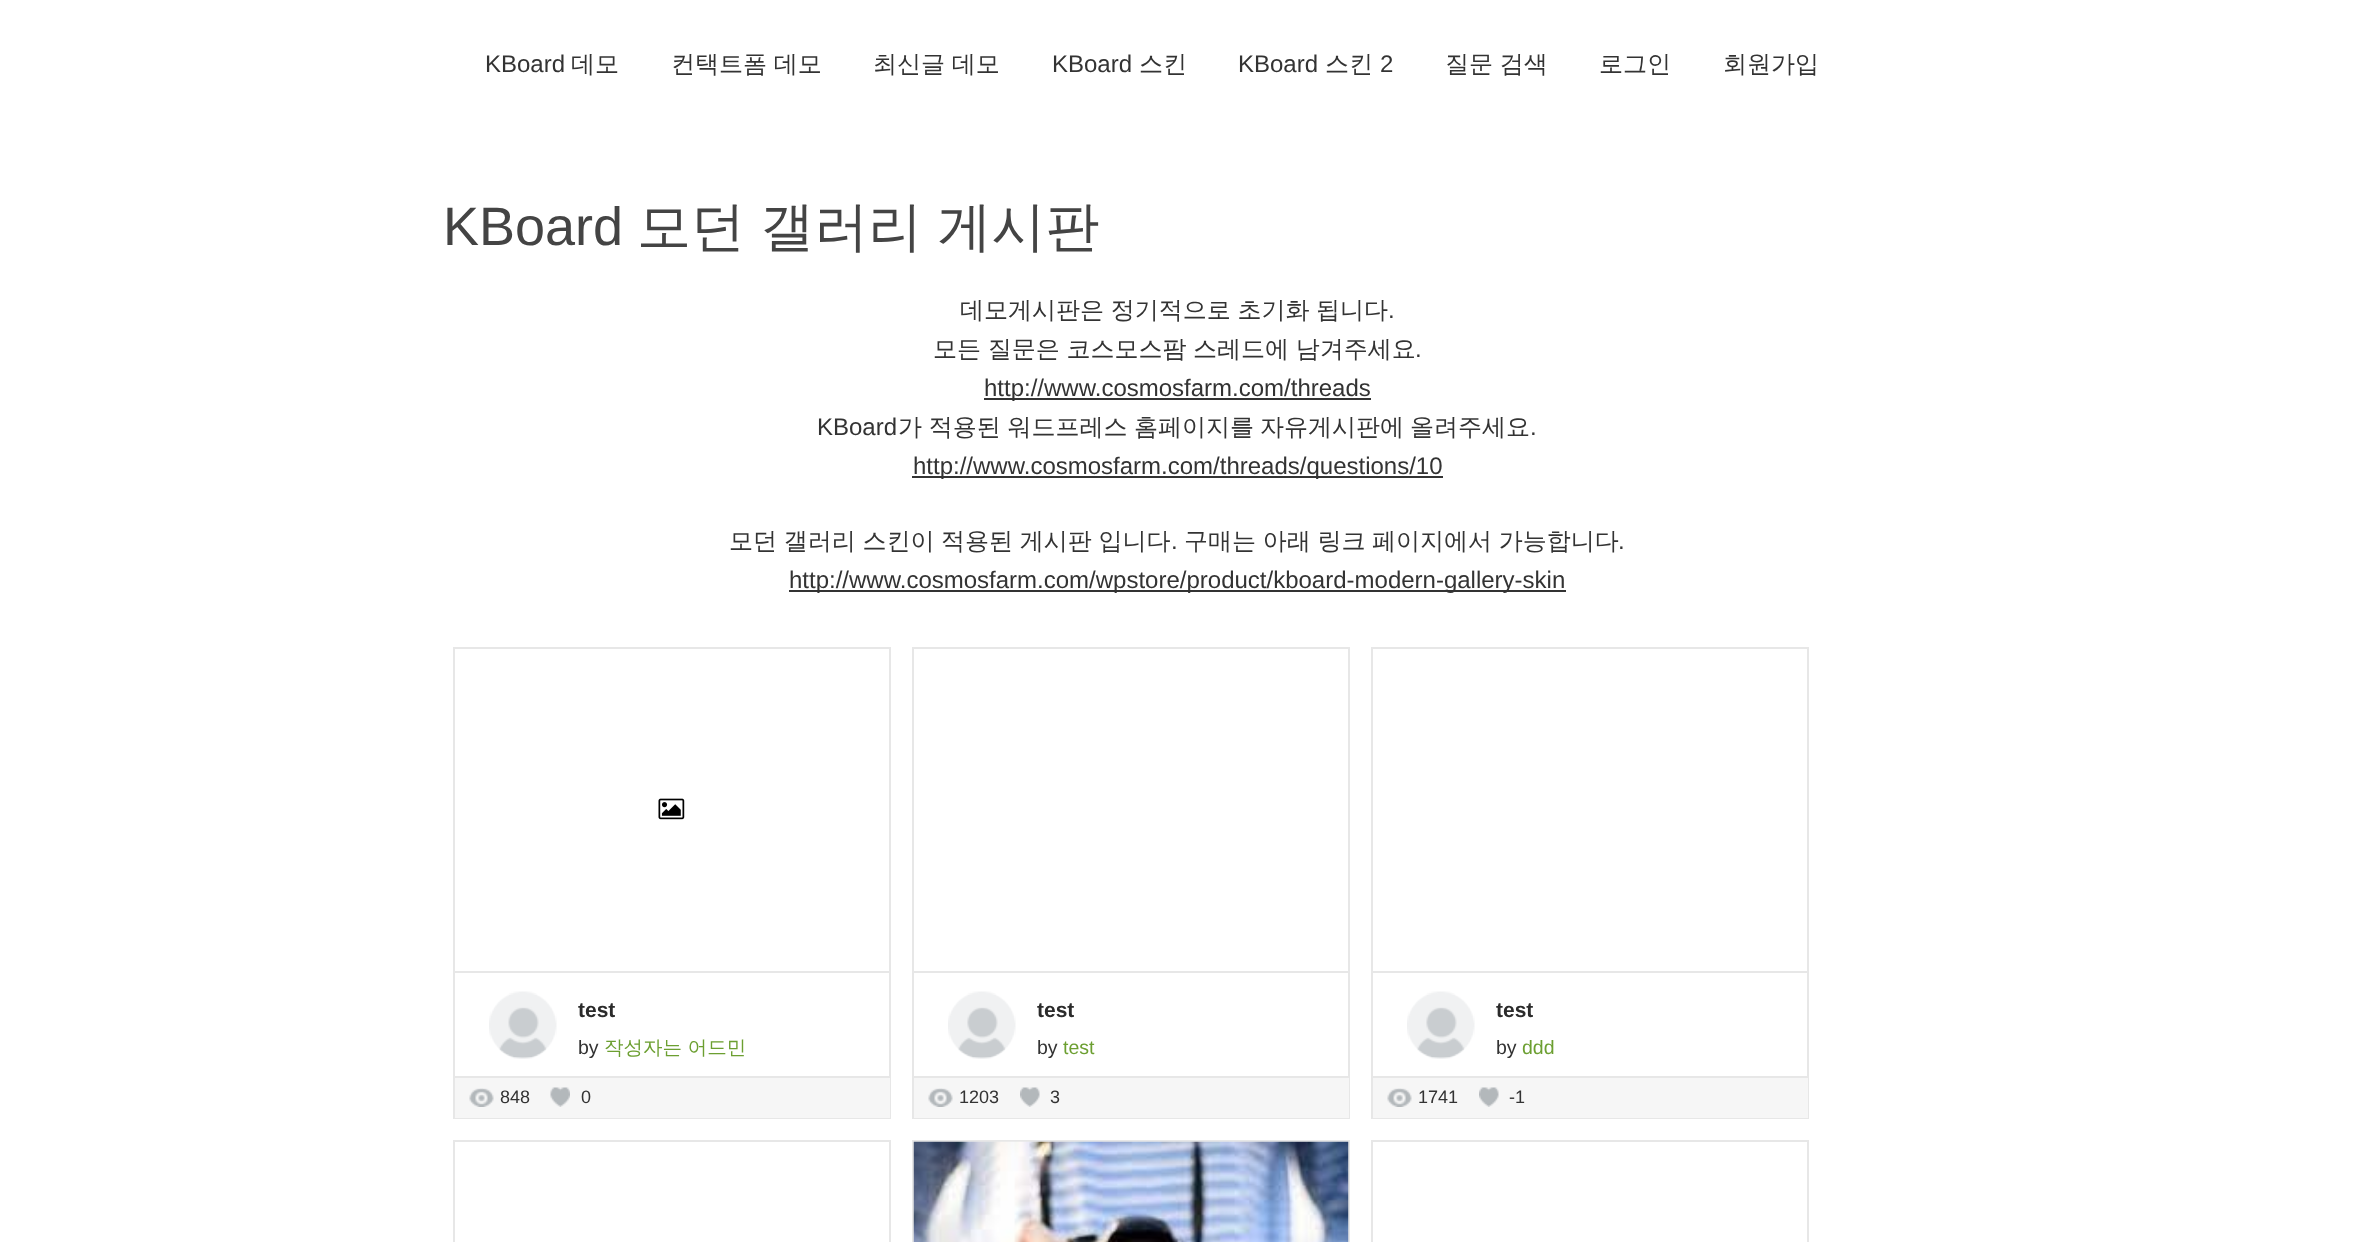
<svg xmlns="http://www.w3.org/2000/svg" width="2354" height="1242">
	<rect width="100%" height="100%" fill="#FFFFFF" />
	<text x="485" y="72" font-family="Liberation Sans" font-size="24" fill="#333333">KBoard</text>
	<g font-family="WenQuanYi Zen Hei" font-size="24" font-weight="500" fill="#333333">
		<text x="571" y="72">데모</text>
		<text x="671" y="72" word-spacing="-0.5">컨택트폼 데모</text>
		<text x="873" y="72" word-spacing="-0.5">최신글 데모</text>
	</g>
	<text x="1052" y="72" font-family="Liberation Sans" font-size="24" fill="#333333">KBoard</text>
	<text x="1139" y="72" font-family="WenQuanYi Zen Hei" font-size="24" font-weight="500" fill="#333333">스킨</text>
	<text x="1238" y="72" font-family="Liberation Sans" font-size="24" fill="#333333">KBoard</text>
	<text x="1325" y="72" font-family="WenQuanYi Zen Hei" font-size="24" font-weight="500" fill="#333333">스킨</text>
	<text x="1380" y="72" font-family="Liberation Sans" font-size="24" fill="#333333">2</text>
	<g font-family="WenQuanYi Zen Hei" font-size="24" font-weight="500" fill="#333333">
		<text x="1445" y="72" word-spacing="-0.5">질문 검색</text>
		<text x="1599" y="72">로그인</text>
		<text x="1723" y="72">회원가입</text>
	</g>
	<text x="443" y="245" font-family="Liberation Sans" font-size="54" fill="#444444">KBoard</text>
	<text x="637" y="245" word-spacing="-1" font-family="WenQuanYi Zen Hei" font-size="54" font-weight="500" fill="#444444">모던 갤러리 게시판</text>
	<text x="960" y="318" word-spacing="-0.5" font-family="WenQuanYi Zen Hei" font-size="24" font-weight="500" fill="#333333">데모게시판은 정기적으로 초기화 됩니다</text>
	<text x="1388" y="318" font-family="Liberation Sans" font-size="24" fill="#333333">.</text>
	<text x="933" y="357" word-spacing="-0.5" font-family="WenQuanYi Zen Hei" font-size="24" font-weight="500" fill="#333333">모든 질문은 코스모스팜 스레드에 남겨주세요</text>
	<text x="1415" y="357" font-family="Liberation Sans" font-size="24" fill="#333333">.</text>
	<rect x="984" y="398" width="387" height="2" fill="#333333" />
	<g font-family="Liberation Sans" font-size="24" fill="#333333">
		<text x="984" y="396">http://www.cosmosfarm.com/threads</text>
		<text x="817" y="435">KBoard</text>
	</g>
	<g font-family="WenQuanYi Zen Hei" font-size="24" font-weight="500" fill="#333333">
		<text x="898" y="435" word-spacing="-0.5">가 적용된 워드프레스 홈페이지를</text>
		<text x="1260" y="435">자유게시판에</text>
		<text x="1410" y="435">올려주세요</text>
	</g>
	<text x="1530" y="435" font-family="Liberation Sans" font-size="24" fill="#333333">.</text>
	<rect x="912" y="476" width="531" height="2" fill="#333333" />
	<text x="913" y="474" font-family="Liberation Sans" font-size="24" fill="#333333">http://www.cosmosfarm.com/threads/questions/10</text>
	<text x="729" y="549" word-spacing="-0.5" font-family="WenQuanYi Zen Hei" font-size="24" font-weight="500" fill="#333333">모던 갤러리 스킨이 적용된 게시판 입니다</text>
	<text x="1171" y="549" font-family="Liberation Sans" font-size="24" fill="#333333">.</text>
	<text x="1184" y="549" word-spacing="-0.5" font-family="WenQuanYi Zen Hei" font-size="24" font-weight="500" fill="#333333">구매는 아래 링크 페이지에서 가능합니다</text>
	<text x="1618" y="549" font-family="Liberation Sans" font-size="24" fill="#333333">.</text>
	<rect x="789" y="590" width="777" height="2" fill="#333333" />
	<text x="789" y="588" font-family="Liberation Sans" font-size="24" fill="#333333">http://www.cosmosfarm.com/wpstore/product/kboard-modern-gallery-skin</text>
	<rect x="454" y="648" width="436" height="470" fill="none" stroke="#E7E7E7" stroke-width="2" />
	<image x="658" y="798" width="27" height="22" href="assets/img1.png" />
	<rect x="455" y="971" width="435" height="2" fill="#E7E7E7" />
	<image x="489" y="991" width="68" height="68" href="assets/img2.png" />
	<image x="491" y="994" width="65" height="64" href="assets/img3.png" />
	<text x="578" y="1017" font-family="Liberation Sans" font-size="21" font-weight="700" fill="#2B2B2B">test</text>
	<text x="578" y="1054" font-family="Liberation Sans" font-size="19.5" fill="#333333">by</text>
	<text x="604" y="1054" font-family="WenQuanYi Zen Hei" font-size="19.5" font-weight="500" fill="#6C9F31">작성자는 어드민</text>
	<rect x="455" y="1078" width="435" height="40" fill="#F6F6F6" />
	<rect x="455" y="1076" width="435" height="2" fill="#E7E7E7" />
	<image x="469" y="1088" width="25" height="19" href="assets/img4.png" />
	<text x="500" y="1103" font-family="Liberation Sans" font-size="18" fill="#333333">848</text>
	<image x="550" y="1087" width="20" height="20" href="assets/img5.png" />
	<text x="581" y="1103" font-family="Liberation Sans" font-size="18" fill="#333333">0</text>
	<rect x="913" y="648" width="436" height="470" fill="none" stroke="#E7E7E7" stroke-width="2" />
	<rect x="914" y="971" width="435" height="2" fill="#E7E7E7" />
	<image x="948" y="991" width="68" height="68" href="assets/img6.png" />
	<image x="950" y="994" width="65" height="64" href="assets/img7.png" />
	<text x="1037" y="1017" font-family="Liberation Sans" font-size="21" font-weight="700" fill="#2B2B2B">test</text>
	<text x="1037" y="1054" font-family="Liberation Sans" font-size="19.5" fill="#333333">by</text>
	<text x="1063" y="1054" font-family="Liberation Sans" font-size="19.5" fill="#6C9F31">test</text>
	<rect x="914" y="1078" width="435" height="40" fill="#F6F6F6" />
	<rect x="914" y="1076" width="435" height="2" fill="#E7E7E7" />
	<image x="928" y="1088" width="25" height="19" href="assets/img4.png" />
	<text x="959" y="1103" font-family="Liberation Sans" font-size="18" fill="#333333">1203</text>
	<image x="1020" y="1087" width="20" height="20" href="assets/img8.png" />
	<text x="1050" y="1103" font-family="Liberation Sans" font-size="18" fill="#333333">3</text>
	<rect x="1372" y="648" width="436" height="470" fill="none" stroke="#E7E7E7" stroke-width="2" />
	<rect x="1373" y="971" width="435" height="2" fill="#E7E7E7" />
	<image x="1407" y="991" width="68" height="68" href="assets/img6.png" />
	<image x="1409" y="994" width="65" height="64" href="assets/img7.png" />
	<text x="1496" y="1017" font-family="Liberation Sans" font-size="21" font-weight="700" fill="#2B2B2B">test</text>
	<text x="1496" y="1054" font-family="Liberation Sans" font-size="19.5" fill="#333333">by</text>
	<text x="1522" y="1054" font-family="Liberation Sans" font-size="19.5" fill="#6C9F31">ddd</text>
	<rect x="1373" y="1078" width="435" height="40" fill="#F6F6F6" />
	<rect x="1373" y="1076" width="435" height="2" fill="#E7E7E7" />
	<image x="1387" y="1088" width="25" height="19" href="assets/img9.png" />
	<text x="1418" y="1103" font-family="Liberation Sans" font-size="18" fill="#333333">1741</text>
	<image x="1479" y="1087" width="20" height="20" href="assets/img10.png" />
	<text x="1509" y="1103" font-family="Liberation Sans" font-size="18" fill="#333333">-1</text>
	<rect x="454" y="1141" width="436" height="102" fill="none" stroke="#E7E7E7" stroke-width="2" />
	<rect x="913" y="1141" width="436" height="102" fill="none" stroke="#E7E7E7" stroke-width="2" />
	<image x="913" y="1141" width="436" height="101" href="assets/img11.png" />
	<rect x="1372" y="1141" width="436" height="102" fill="none" stroke="#E7E7E7" stroke-width="2" />
</svg>
